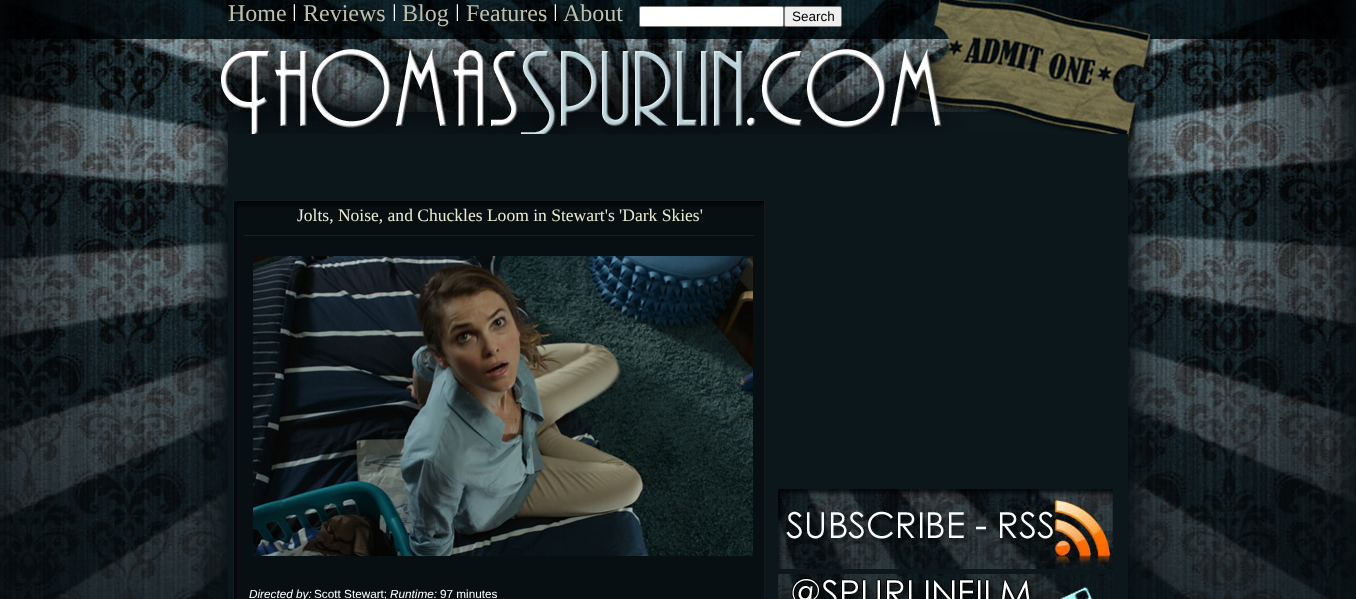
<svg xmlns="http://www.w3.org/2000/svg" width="1356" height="599">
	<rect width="100%" height="100%" fill="#FFFFFF" />
	<image x="0" y="0" width="1356" height="599" href="assets/img1.png" />
	<text x="228" y="21" font-family="Liberation Serif" font-size="24" fill="#BFBFAD">Home</text>
	<text x="292" y="21" font-family="Liberation Serif" font-size="24" fill="#FFFFFF">ǀ</text>
	<text x="303" y="21" font-family="Liberation Serif" font-size="24" fill="#BFBFAD">Reviews</text>
	<text x="392" y="21" font-family="Liberation Serif" font-size="24" fill="#FFFFFF">ǀ</text>
	<text x="402" y="21" font-family="Liberation Serif" font-size="24" fill="#BFBFAD">Blog</text>
	<text x="455" y="21" font-family="Liberation Serif" font-size="24" fill="#FFFFFF">ǀ</text>
	<text x="466" y="21" font-family="Liberation Serif" font-size="24" fill="#BFBFAD">Features</text>
	<text x="553" y="21" font-family="Liberation Serif" font-size="24" fill="#FFFFFF">ǀ</text>
	<text x="563" y="21" font-family="Liberation Serif" font-size="24" fill="#BFBFAD">About</text>
	<rect x="639.5" y="6.5" width="144" height="20" rx="1.5" fill="#FFFFFF" stroke="#767676" />
	<rect x="784.5" y="6.5" width="57" height="20" rx="1.5" fill="#EFEFEF" stroke="#767676" />
	<text x="792" y="21" font-family="Liberation Sans" font-size="13.5" fill="#000000">Search</text>
	<rect x="228" y="134" width="900" height="465" fill="#0B171B" />
	<rect x="237" y="208" width="527" height="391" fill="#080F12" />
	<rect x="234" y="200" width="3" height="399" fill="#03080C" />
	<rect x="233.5" y="200.5" width="531" height="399" fill="none" stroke="#151B1B" />
	<image x="237" y="201" width="527" height="7" href="assets/img2.png" />
	<text x="297" y="221" font-family="Liberation Serif" font-size="17.55" fill="#EAEAD4">Jolts, Noise, and Chuckles Loom in Stewart's 'Dark Skies'</text>
	<rect x="244" y="235" width="510" height="1" fill="#152426" />
	<image x="253" y="256" width="500" height="300" href="assets/img3.png" />
	<text x="249" y="598" font-family="Liberation Sans" font-size="11.75" font-style="italic" fill="#FFFFFF">Directed by:</text>
	<text x="314" y="598" font-family="Liberation Sans" font-size="11.75" fill="#FFFFFF">Scott Stewart;</text>
	<text x="390" y="598" font-family="Liberation Sans" font-size="11.75" font-style="italic" fill="#FFFFFF">Runtime:</text>
	<text x="440" y="598" font-family="Liberation Sans" font-size="11.75" fill="#FFFFFF">97 minutes</text>
	<image x="778" y="489" width="335" height="80" href="assets/img4.png" />
	<image x="778" y="574" width="335" height="25" href="assets/img5.png" />
</svg>
